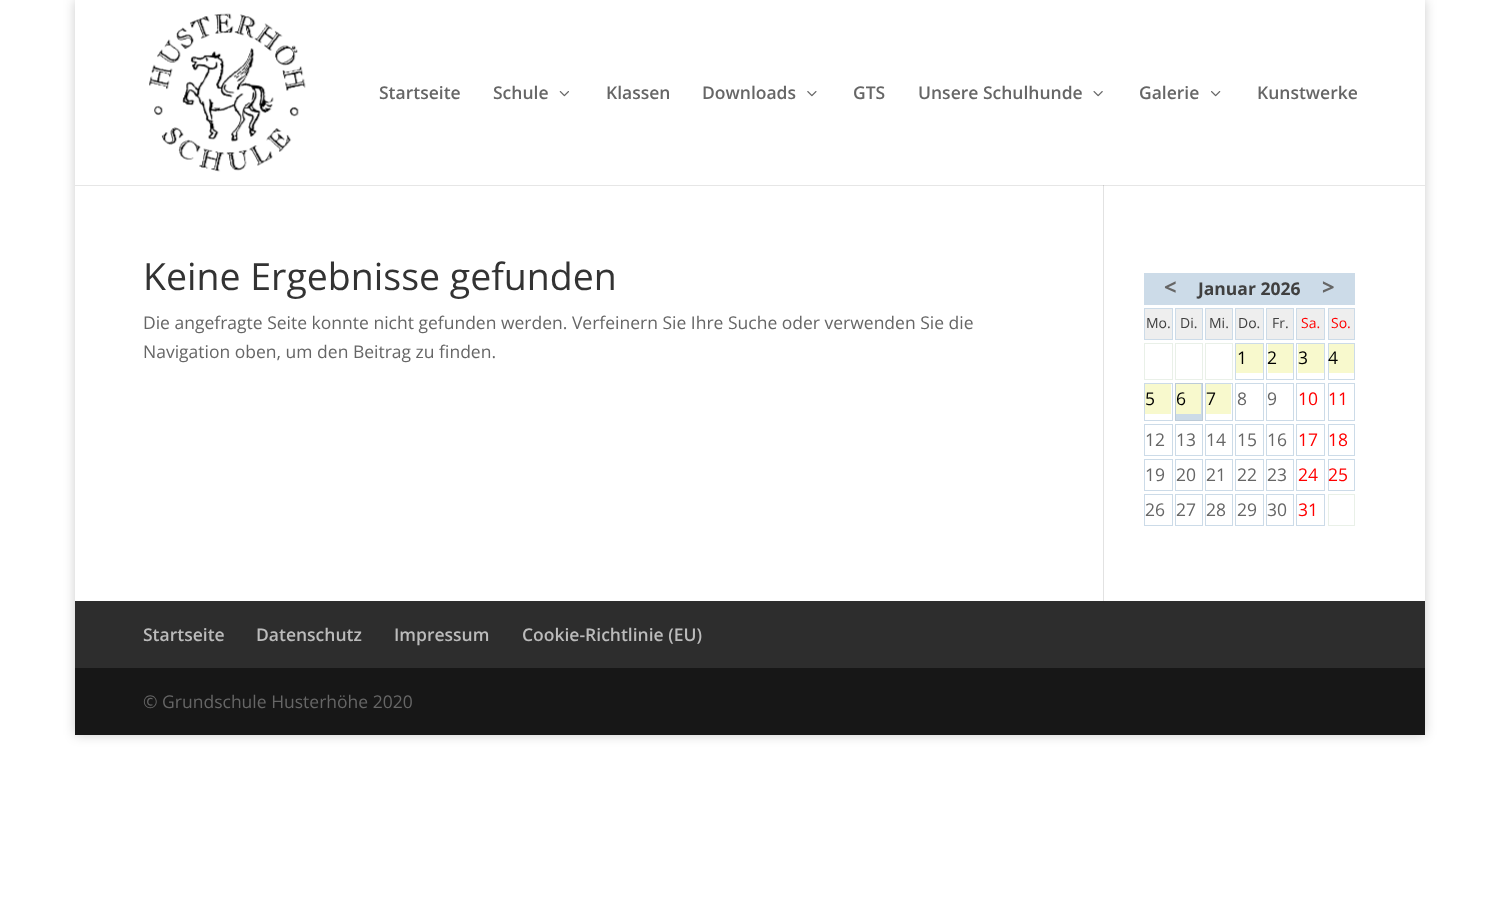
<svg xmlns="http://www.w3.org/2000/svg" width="1499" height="917">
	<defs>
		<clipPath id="clip1"><path d="M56 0H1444V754H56ZM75 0H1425V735H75Z" clip-rule="evenodd" /></clipPath>
	</defs>
	<rect width="100%" height="100%" fill="#FFFFFF" />
	<rect x="75" y="185" width="1350" height="1" fill="#E6E6E6" />
	<g clip-path="url(#clip1)">
		<rect x="75" y="0" width="1350" height="735" fill="#000000" fill-opacity="0.2" filter="blur(6px)" />
	</g>
	<image x="149" y="13" width="157" height="159" href="assets/img1.png" />
	<g font-family="Open Sans" font-size="17.5" font-weight="600" fill="#666666">
		<text x="379" y="99">Startseite</text>
		<text x="493" y="99">Schule</text>
	</g>
	<image x="559" y="91" width="10" height="6" href="assets/img2.png" />
	<g font-family="Open Sans" font-size="17.5" font-weight="600" fill="#666666">
		<text x="606" y="99">Klassen</text>
		<text x="702" y="99">Downloads</text>
	</g>
	<image x="807" y="91" width="10" height="6" href="assets/img3.png" />
	<g font-family="Open Sans" font-size="17.5" font-weight="600" fill="#666666">
		<text x="853" y="99">GTS</text>
		<text x="918" y="99">Unsere Schulhunde</text>
	</g>
	<image x="1093" y="91" width="10" height="6" href="assets/img4.png" />
	<text x="1139" y="99" font-family="Open Sans" font-size="17.5" font-weight="600" fill="#666666">Galerie</text>
	<image x="1211" y="91" width="10" height="6" href="assets/img5.png" />
	<text x="1257" y="99" font-family="Open Sans" font-size="17.5" font-weight="600" fill="#666666">Kunstwerke</text>
	<rect x="1103" y="185" width="1" height="416" fill="#E2E2E2" />
	<rect x="1103" y="185" width="1" height="1" fill="#CBCBCB" />
	<text x="143" y="290" font-family="Open Sans" font-size="37.5" fill="#333333">Keine Ergebnisse gefunden</text>
	<g font-family="Open Sans" font-size="17.5" fill="#666666">
		<text x="143" y="329">Die angefragte Seite konnte nicht gefunden werden. Verfeinern Sie Ihre Suche oder verwenden Sie die</text>
		<text x="143" y="358">Navigation oben, um den Beitrag zu finden.</text>
	</g>
	<rect x="1144" y="273" width="211" height="32" fill="#CCDBE8" />
	<text x="1164" y="295" font-family="Open Sans" font-size="22" font-weight="700" fill="#666666">&lt;</text>
	<text x="1198" y="295" font-family="Open Sans" font-size="17.5" font-weight="700" fill="#404040">Januar 2026</text>
	<text x="1322" y="295" font-family="Open Sans" font-size="22" font-weight="700" fill="#666666">&gt;</text>
	<rect x="1144.5" y="308.5" width="28" height="31" fill="#EEEEEE" stroke="#CCDBE8" />
	<text x="1146" y="328" font-family="Open Sans" font-size="14" fill="#404040">Mo.</text>
	<rect x="1175.5" y="308.5" width="27" height="31" fill="#EEEEEE" stroke="#CCDBE8" />
	<text x="1180" y="328" font-family="Open Sans" font-size="14" fill="#404040">Di.</text>
	<rect x="1205.5" y="308.5" width="27" height="31" fill="#EEEEEE" stroke="#CCDBE8" />
	<text x="1209" y="328" font-family="Open Sans" font-size="14" fill="#404040">Mi.</text>
	<rect x="1235.5" y="308.5" width="28" height="31" fill="#EEEEEE" stroke="#CCDBE8" />
	<text x="1238" y="328" font-family="Open Sans" font-size="14" fill="#404040">Do.</text>
	<rect x="1266.5" y="308.5" width="27" height="31" fill="#EEEEEE" stroke="#CCDBE8" />
	<text x="1272" y="328" font-family="Open Sans" font-size="14" fill="#404040">Fr.</text>
	<rect x="1296.5" y="308.5" width="28" height="31" fill="#EEEEEE" stroke="#CCDBE8" />
	<text x="1301" y="328" font-family="Open Sans" font-size="14" fill="#FF0000">Sa.</text>
	<rect x="1328.5" y="308.5" width="26" height="31" fill="#EEEEEE" stroke="#CCDBE8" />
	<text x="1331" y="328" font-family="Open Sans" font-size="14" fill="#FF0000">So.</text>
	<rect x="1144.5" y="343.5" width="28" height="36" fill="none" stroke="#E9F0E8" />
	<rect x="1175.5" y="343.5" width="27" height="36" fill="none" stroke="#E9F0E8" />
	<rect x="1205.5" y="343.5" width="27" height="36" fill="none" stroke="#E9F0E8" />
	<rect x="1235.5" y="343.5" width="28" height="36" fill="none" stroke="#CCDBE8" />
	<rect x="1236" y="344" width="27" height="29" fill="#F8F9CD" />
	<text x="1237" y="364" font-family="Open Sans" font-size="17.5" fill="#000000">1</text>
	<rect x="1266.5" y="343.5" width="27" height="36" fill="none" stroke="#CCDBE8" />
	<rect x="1268" y="344" width="25" height="29" fill="#F8F9CD" />
	<text x="1267" y="364" font-family="Open Sans" font-size="17.5" fill="#000000">2</text>
	<rect x="1296.5" y="343.5" width="28" height="36" fill="none" stroke="#CCDBE8" />
	<rect x="1298" y="344" width="26" height="29" fill="#F8F9CD" />
	<text x="1298" y="364" font-family="Open Sans" font-size="17.5" fill="#000000">3</text>
	<rect x="1328.5" y="343.5" width="26" height="36" fill="none" stroke="#CCDBE8" />
	<rect x="1329" y="344" width="25" height="29" fill="#F8F9CD" />
	<text x="1328" y="364" font-family="Open Sans" font-size="17.5" fill="#000000">4</text>
	<rect x="1144.5" y="383.5" width="28" height="37" fill="none" stroke="#CCDBE8" />
	<rect x="1145" y="384" width="26" height="30" fill="#F8F9CD" />
	<text x="1145" y="405" font-family="Open Sans" font-size="17.5" fill="#000000">5</text>
	<rect x="1175.5" y="383.5" width="27" height="37" fill="#CCDBE8" stroke="#BCCBD8" />
	<rect x="1176" y="384" width="25" height="30" fill="#F8F9CD" />
	<text x="1176" y="405" font-family="Open Sans" font-size="17.5" fill="#000000">6</text>
	<rect x="1205.5" y="383.5" width="27" height="37" fill="none" stroke="#CCDBE8" />
	<rect x="1206" y="384" width="25" height="30" fill="#F8F9CD" />
	<text x="1206" y="405" font-family="Open Sans" font-size="17.5" fill="#000000">7</text>
	<rect x="1235.5" y="383.5" width="28" height="37" fill="none" stroke="#CCDBE8" />
	<text x="1237" y="405" font-family="Open Sans" font-size="17.5" fill="#666666">8</text>
	<rect x="1266.5" y="383.5" width="27" height="37" fill="none" stroke="#CCDBE8" />
	<text x="1267" y="405" font-family="Open Sans" font-size="17.5" fill="#666666">9</text>
	<rect x="1296.5" y="383.5" width="28" height="37" fill="none" stroke="#CCDBE8" />
	<text x="1298" y="405" font-family="Open Sans" font-size="17.5" fill="#FF0000">10</text>
	<rect x="1328.5" y="383.5" width="26" height="37" fill="none" stroke="#CCDBE8" />
	<text x="1328" y="405" font-family="Open Sans" font-size="17.5" fill="#FF0000">11</text>
	<rect x="1144.5" y="424.5" width="28" height="31" fill="none" stroke="#CCDBE8" />
	<text x="1145" y="446" font-family="Open Sans" font-size="17.5" fill="#666666">12</text>
	<rect x="1175.5" y="424.5" width="27" height="31" fill="none" stroke="#CCDBE8" />
	<text x="1176" y="446" font-family="Open Sans" font-size="17.5" fill="#666666">13</text>
	<rect x="1205.5" y="424.5" width="27" height="31" fill="none" stroke="#CCDBE8" />
	<text x="1206" y="446" font-family="Open Sans" font-size="17.5" fill="#666666">14</text>
	<rect x="1235.5" y="424.5" width="28" height="31" fill="none" stroke="#CCDBE8" />
	<text x="1237" y="446" font-family="Open Sans" font-size="17.5" fill="#666666">15</text>
	<rect x="1266.5" y="424.5" width="27" height="31" fill="none" stroke="#CCDBE8" />
	<text x="1267" y="446" font-family="Open Sans" font-size="17.5" fill="#666666">16</text>
	<rect x="1296.5" y="424.5" width="28" height="31" fill="none" stroke="#CCDBE8" />
	<text x="1298" y="446" font-family="Open Sans" font-size="17.5" fill="#FF0000">17</text>
	<rect x="1328.5" y="424.5" width="26" height="31" fill="none" stroke="#CCDBE8" />
	<text x="1328" y="446" font-family="Open Sans" font-size="17.5" fill="#FF0000">18</text>
	<rect x="1144.5" y="459.5" width="28" height="31" fill="none" stroke="#CCDBE8" />
	<text x="1145" y="481" font-family="Open Sans" font-size="17.5" fill="#666666">19</text>
	<rect x="1175.5" y="459.5" width="27" height="31" fill="none" stroke="#CCDBE8" />
	<text x="1176" y="481" font-family="Open Sans" font-size="17.5" fill="#666666">20</text>
	<rect x="1205.5" y="459.5" width="27" height="31" fill="none" stroke="#CCDBE8" />
	<text x="1206" y="481" font-family="Open Sans" font-size="17.5" fill="#666666">21</text>
	<rect x="1235.5" y="459.5" width="28" height="31" fill="none" stroke="#CCDBE8" />
	<text x="1237" y="481" font-family="Open Sans" font-size="17.5" fill="#666666">22</text>
	<rect x="1266.5" y="459.5" width="27" height="31" fill="none" stroke="#CCDBE8" />
	<text x="1267" y="481" font-family="Open Sans" font-size="17.5" fill="#666666">23</text>
	<rect x="1296.5" y="459.5" width="28" height="31" fill="none" stroke="#CCDBE8" />
	<text x="1298" y="481" font-family="Open Sans" font-size="17.5" fill="#FF0000">24</text>
	<rect x="1328.5" y="459.5" width="26" height="31" fill="none" stroke="#CCDBE8" />
	<text x="1328" y="481" font-family="Open Sans" font-size="17.5" fill="#FF0000">25</text>
	<rect x="1144.5" y="494.5" width="28" height="31" fill="none" stroke="#CCDBE8" />
	<text x="1145" y="516" font-family="Open Sans" font-size="17.5" fill="#666666">26</text>
	<rect x="1175.5" y="494.5" width="27" height="31" fill="none" stroke="#CCDBE8" />
	<text x="1176" y="516" font-family="Open Sans" font-size="17.5" fill="#666666">27</text>
	<rect x="1205.5" y="494.5" width="27" height="31" fill="none" stroke="#CCDBE8" />
	<text x="1206" y="516" font-family="Open Sans" font-size="17.5" fill="#666666">28</text>
	<rect x="1235.5" y="494.5" width="28" height="31" fill="none" stroke="#CCDBE8" />
	<text x="1237" y="516" font-family="Open Sans" font-size="17.5" fill="#666666">29</text>
	<rect x="1266.5" y="494.5" width="27" height="31" fill="none" stroke="#CCDBE8" />
	<text x="1267" y="516" font-family="Open Sans" font-size="17.5" fill="#666666">30</text>
	<rect x="1296.5" y="494.5" width="28" height="31" fill="none" stroke="#CCDBE8" />
	<text x="1298" y="516" font-family="Open Sans" font-size="17.5" fill="#FF0000">31</text>
	<rect x="1328.5" y="494.5" width="26" height="31" fill="none" stroke="#E9F0E8" />
	<rect x="75" y="601" width="1350" height="67" fill="#2D2D2D" />
	<g font-family="Open Sans" font-size="17.5" font-weight="600" fill="#BBBBBB">
		<text x="143" y="641">Startseite</text>
		<text x="256" y="641">Datenschutz</text>
		<text x="394" y="641">Impressum</text>
		<text x="522" y="641">Cookie-Richtlinie (EU)</text>
	</g>
	<rect x="75" y="668" width="1350" height="67" fill="#171717" />
	<text x="143" y="708" font-family="Open Sans" font-size="17.5" fill="#666666">© Grundschule Husterhöhe 2020</text>
</svg>
